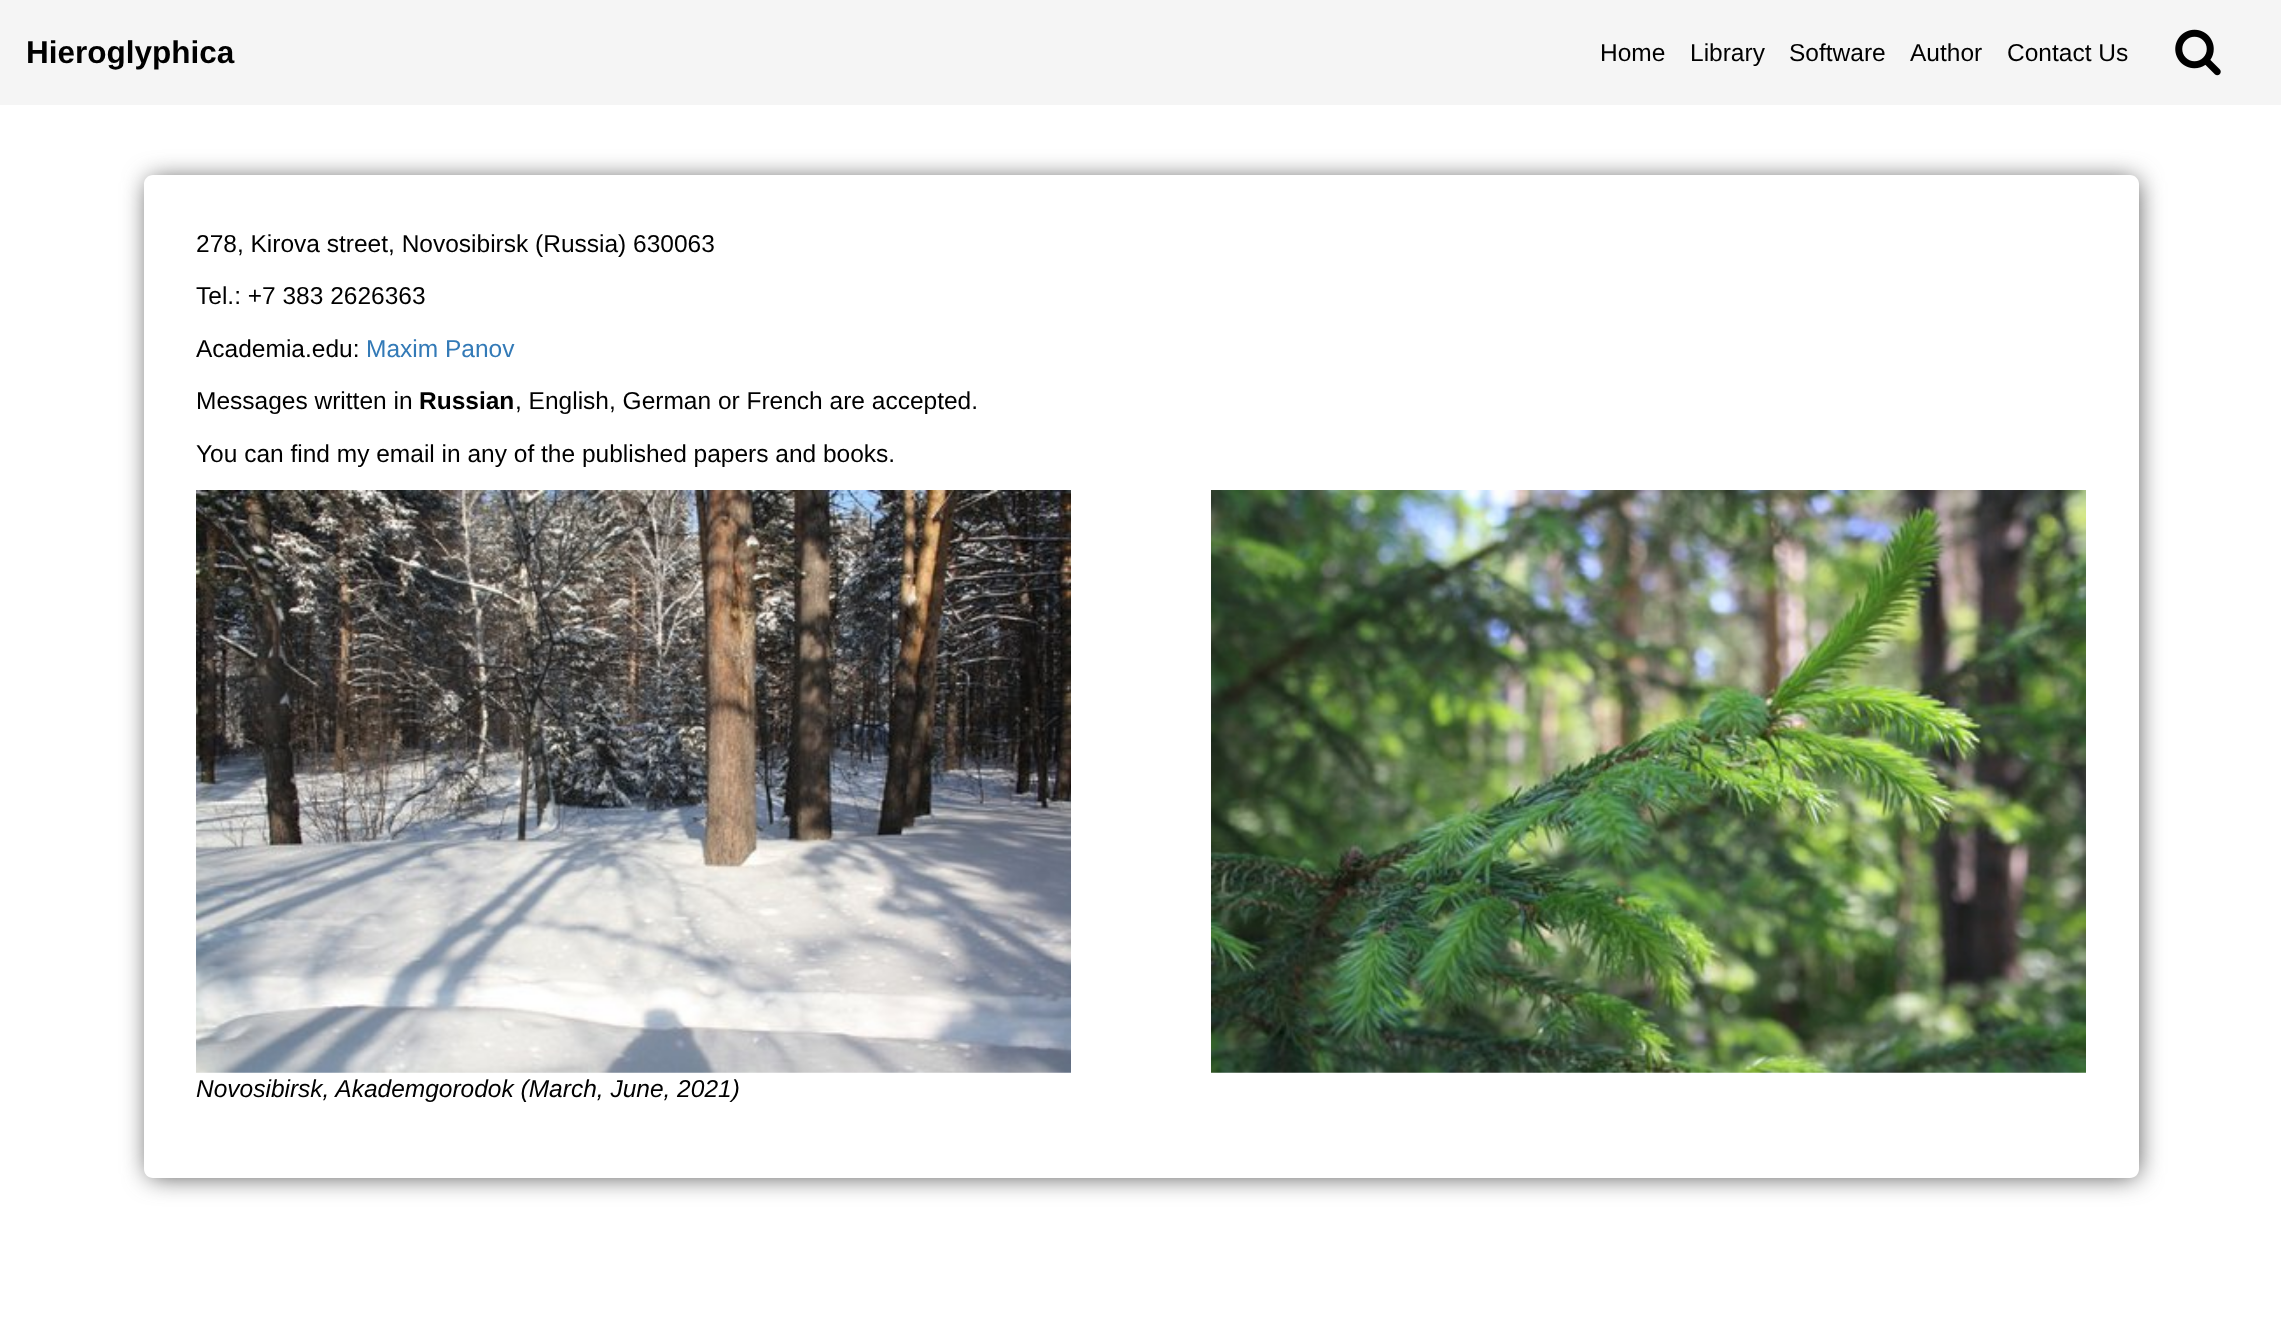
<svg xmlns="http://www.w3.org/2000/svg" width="2281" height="1336">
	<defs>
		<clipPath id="clip1"><path d="M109 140H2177V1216H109ZM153 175H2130C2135 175 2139 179 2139 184V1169C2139 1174 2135 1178 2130 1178H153C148 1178 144 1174 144 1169V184C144 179 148 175 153 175Z" clip-rule="evenodd" /></clipPath>
	</defs>
	<rect width="100%" height="100%" fill="#FFFFFF" />
	<rect x="0" y="0" width="2281" height="105" fill="#F5F5F5" />
	<text x="26" y="63" font-family="Liberation Sans" font-size="31.5" font-weight="700" fill="#000000">Hieroglyphica</text>
	<g font-family="Liberation Sans" font-size="24.5" fill="#000000">
		<text x="1600" y="61">Home</text>
		<text x="1690" y="61">Library</text>
		<text x="1789" y="61">Software</text>
		<text x="1910" y="61">Author</text>
		<text x="2007" y="61">Contact Us</text>
	</g>
	<image x="2175" y="29" width="46" height="47" href="assets/img1.png" />
	<g clip-path="url(#clip1)">
		<rect x="149" y="180" width="1988" height="996" rx="5" fill="#444444" filter="blur(13px)" />
	</g>
	<g font-family="Liberation Sans" font-size="24.5" fill="#000000">
		<text x="196" y="252">278, Kirova street, Novosibirsk (Russia) 630063</text>
		<text x="196" y="304">Tel.: +7 383 2626363</text>
		<text x="196" y="357">Academia.edu:</text>
	</g>
	<text x="366" y="357" font-family="Liberation Sans" font-size="24.5" fill="#337AB7">Maxim Panov</text>
	<text x="196" y="409" font-family="Liberation Sans" font-size="24.5" fill="#000000">Messages written in</text>
	<text x="419" y="409" font-family="Liberation Sans" font-size="24.5" font-weight="700" fill="#000000">Russian</text>
	<g font-family="Liberation Sans" font-size="24.5" fill="#000000">
		<text x="515" y="409">, English, German or French are accepted.</text>
		<text x="196" y="462">You can find my email in any of the published papers and books.</text>
	</g>
	<image x="196" y="490" width="875" height="583" href="assets/img2.png" />
	<image x="1211" y="490" width="875" height="583" href="assets/img3.png" />
	<text x="196" y="1097" font-family="Liberation Sans" font-size="24.5" font-style="italic" fill="#000000">Novosibirsk, Akademgorodok (March, June, 2021)</text>
</svg>
